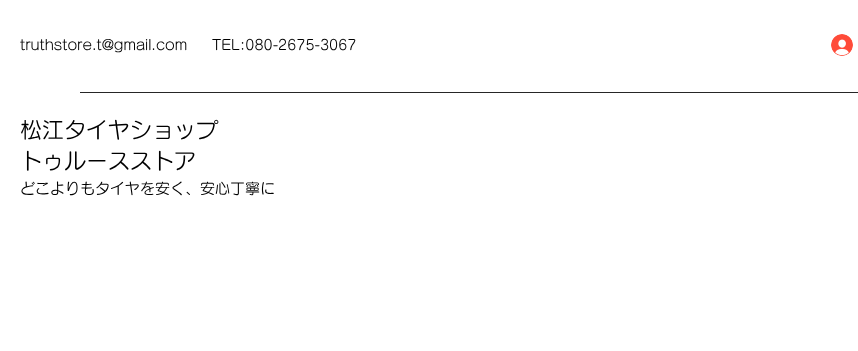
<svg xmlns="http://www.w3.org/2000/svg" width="858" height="351">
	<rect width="100%" height="100%" fill="#FFFFFF" />
	<g font-family="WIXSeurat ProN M" font-size="14" font-weight="500" fill="#000000">
		<text x="20" y="50">truthstore.t@gmail.com</text>
		<text x="212" y="50">TEL:080-2675-3067</text>
	</g>
	<image x="831" y="34" width="22" height="22" href="assets/img1.png" />
	<rect x="80" y="92" width="778" height="1" fill="#262626" />
	<g font-family="WIXSeurat ProN M" font-size="22" font-weight="500" fill="#000000">
		<text x="20" y="138">松江タイヤショップ</text>
		<text x="20" y="169">トゥルースストア</text>
	</g>
	<text x="20" y="194" font-family="WIXSeurat ProN M" font-size="15" font-weight="500" fill="#000000">どこよりもタイヤを安く、安心丁寧に</text>
</svg>
